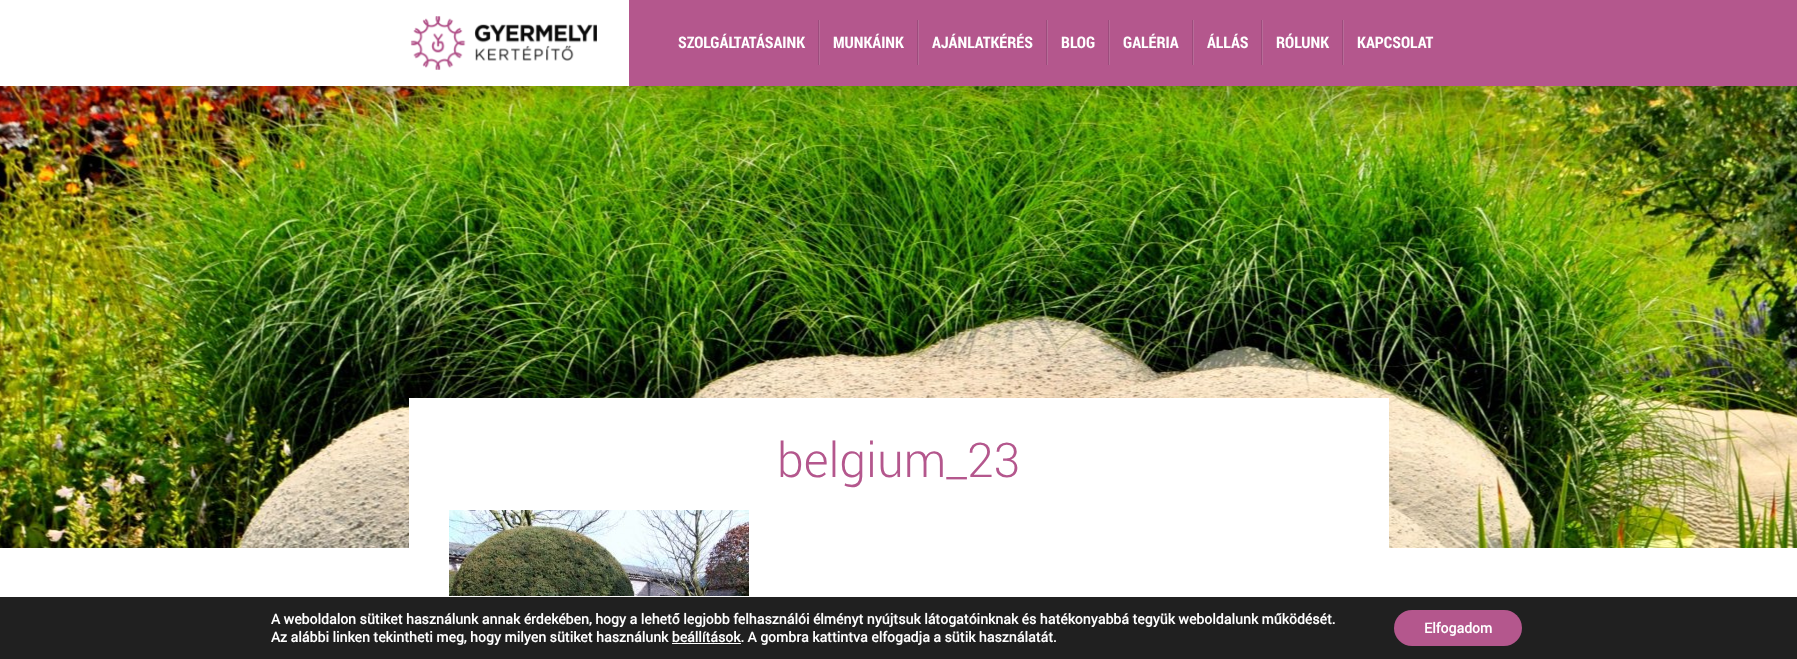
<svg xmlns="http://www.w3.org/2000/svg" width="1797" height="659">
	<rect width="100%" height="100%" fill="#FFFFFF" />
	<image x="0" y="86" width="1797" height="462" href="assets/img2.png" />
	<rect x="0" y="8" width="1797" height="86" fill="#000000" fill-opacity="0.15" filter="blur(7.5px)" />
	<rect x="0" y="0" width="629" height="86" fill="#FFFFFF" />
	<image x="410" y="16" width="187" height="54" href="assets/img1.png" />
	<rect x="629" y="0" width="1168" height="86" fill="#B4578D" />
	<rect x="818" y="20" width="1" height="45" fill="#9C4C7C" />
	<text x="678" y="48" font-family="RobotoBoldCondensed" font-size="16" font-weight="700" fill="#FFFFFF">SZOLGÁLTATÁSAINK</text>
	<rect x="917" y="20" width="1" height="45" fill="#9C4C7C" />
	<rect x="819" y="20" width="1" height="45" fill="#B76C98" />
	<text x="833" y="48" font-family="RobotoBoldCondensed" font-size="16" font-weight="700" fill="#FFFFFF">MUNKÁINK</text>
	<rect x="1046" y="20" width="1" height="45" fill="#9C4C7C" />
	<rect x="918" y="20" width="1" height="45" fill="#B76C98" />
	<text x="932" y="48" font-family="RobotoBoldCondensed" font-size="16" font-weight="700" fill="#FFFFFF">AJÁNLATKÉRÉS</text>
	<rect x="1108" y="20" width="1" height="45" fill="#9C4C7C" />
	<rect x="1047" y="20" width="1" height="45" fill="#B76C98" />
	<text x="1061" y="48" font-family="RobotoBoldCondensed" font-size="16" font-weight="700" fill="#FFFFFF">BLOG</text>
	<rect x="1192" y="20" width="1" height="45" fill="#9C4C7C" />
	<rect x="1109" y="20" width="1" height="45" fill="#B76C98" />
	<text x="1123" y="48" font-family="RobotoBoldCondensed" font-size="16" font-weight="700" fill="#FFFFFF">GALÉRIA</text>
	<rect x="1261" y="20" width="1" height="45" fill="#9C4C7C" />
	<rect x="1193" y="20" width="1" height="45" fill="#B76C98" />
	<text x="1207" y="48" font-family="RobotoBoldCondensed" font-size="16" font-weight="700" fill="#FFFFFF">ÁLLÁS</text>
	<rect x="1342" y="20" width="1" height="45" fill="#9C4C7C" />
	<rect x="1262" y="20" width="1" height="45" fill="#B76C98" />
	<text x="1276" y="48" font-family="RobotoBoldCondensed" font-size="16" font-weight="700" fill="#FFFFFF">RÓLUNK</text>
	<rect x="1343" y="20" width="1" height="45" fill="#B76C98" />
	<text x="1357" y="48" font-family="RobotoBoldCondensed" font-size="16" font-weight="700" fill="#FFFFFF">KAPCSOLAT</text>
	<rect x="409" y="398" width="980" height="150" fill="#FFFFFF" />
	<text x="777" y="477" font-family="Roboto" font-size="48" font-weight="300" fill="#B4578D">belgium_23</text>
	<image x="449" y="510" width="300" height="86" href="assets/img3.png" />
	<rect x="0" y="597" width="1797" height="62" fill="#202020" />
	<g font-family="Roboto" font-size="14" font-weight="700" fill="#FFFFFF">
		<text x="271" y="624">A weboldalon sütiket használunk annak érdekében, hogy a lehető legjobb felhasználói élményt nyújtsuk látogatóinknak és hatékonyabbá tegyük weboldalunk működését.</text>
		<text x="271" y="642">Az alábbi linken tekintheti meg, hogy milyen sütiket használunk beállítások. A gombra kattintva elfogadja a sütik használatát.</text>
	</g>
	<rect x="672" y="643" width="69" height="1" fill="#FFFFFF" />
	<rect x="1394" y="610" width="128" height="36" rx="18" fill="#B4578D" />
	<text x="1424" y="633" font-family="Roboto" font-size="14" font-weight="700" fill="#FFFFFF">Elfogadom</text>
</svg>
